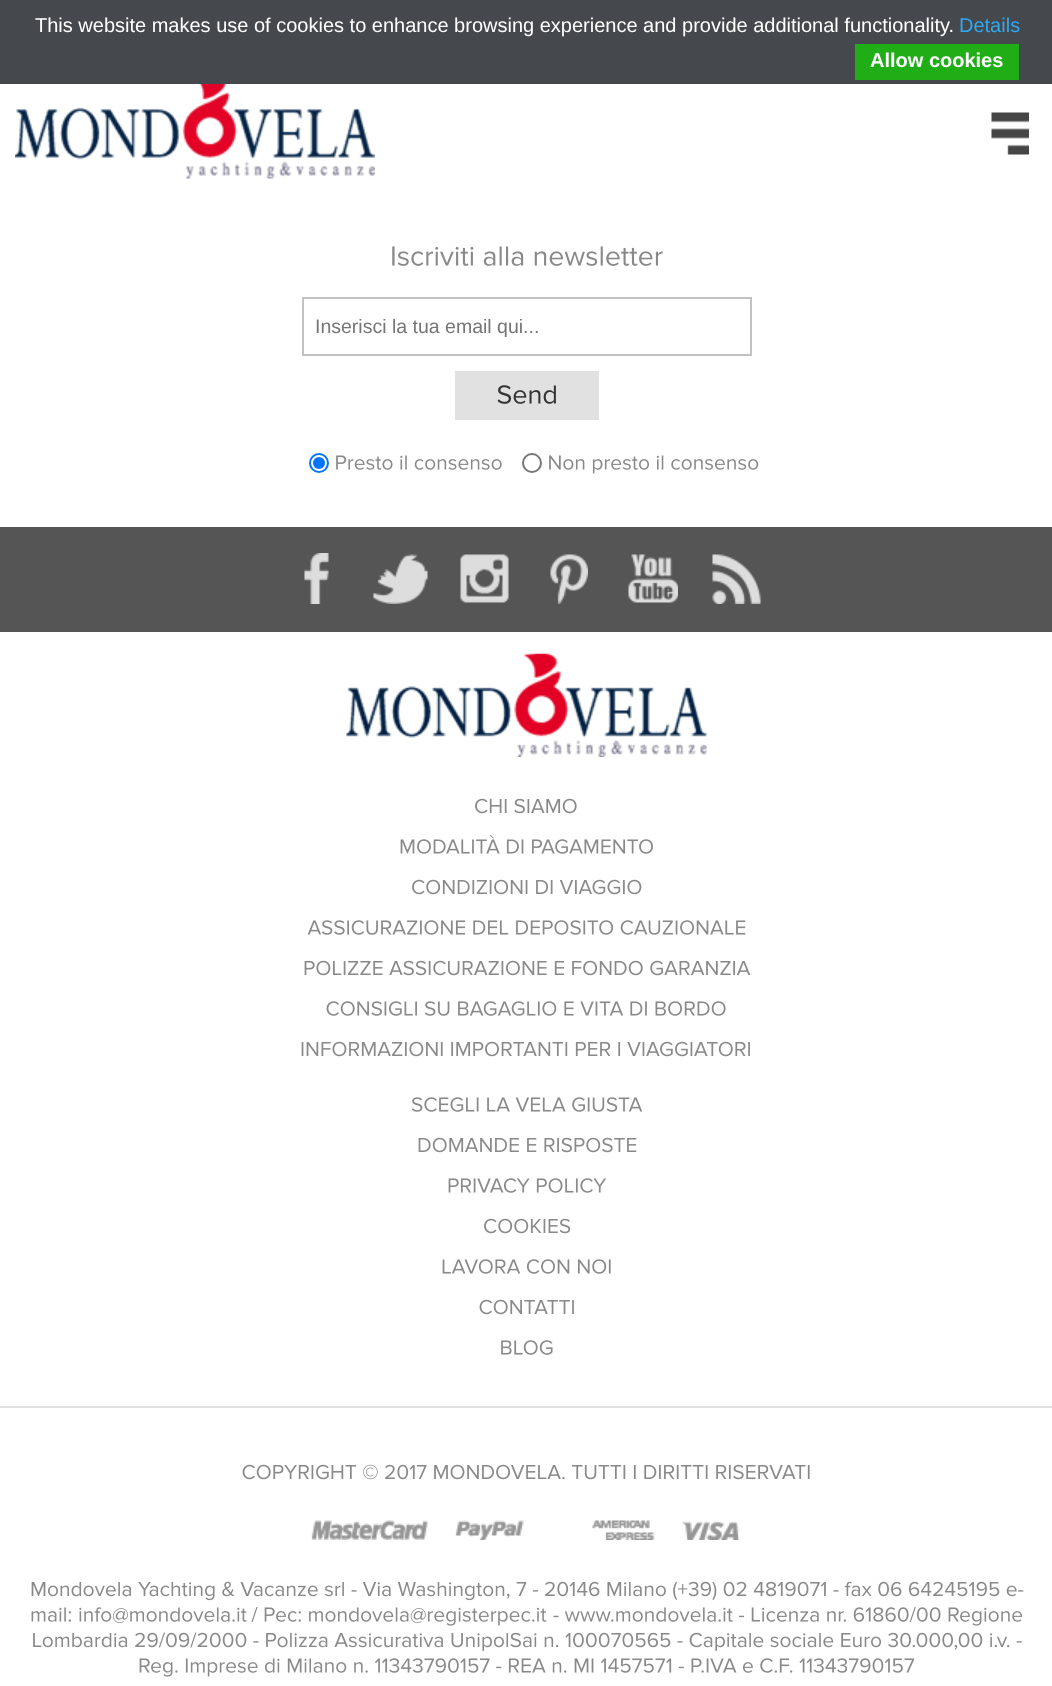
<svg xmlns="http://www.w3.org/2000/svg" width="1052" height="1686">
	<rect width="100%" height="100%" fill="#FFFFFF" />
	<rect x="0" y="0" width="1052" height="84" fill="#45484D" />
	<text x="35" y="32" font-family="Liberation Sans" font-size="20" fill="#FFFFFF">This website makes use of cookies to enhance browsing experience and provide additional functionality.</text>
	<text x="959" y="32" font-family="Liberation Sans" font-size="20" fill="#31A8F0">Details</text>
	<rect x="855" y="44" width="164" height="36" fill="#1FAE16" />
	<text x="870" y="67" font-family="Liberation Sans" font-size="20" font-weight="700" fill="#FFFFFF">Allow cookies</text>
	<image x="15" y="84" width="360" height="95" href="assets/img1.png" />
	<image x="991" y="112" width="38" height="43" href="assets/img2.png" />
	<image x="392" y="246" width="271" height="20" href="assets/img3.png" />
	<rect x="303" y="298" width="448" height="57" fill="none" stroke="#C2C2C2" stroke-width="2" />
	<text x="315" y="333" font-family="Liberation Sans" font-size="19.5" fill="#757575">Inserisci la tua email qui...</text>
	<rect x="455" y="371" width="144" height="49" fill="#E1E1E1" />
	<image x="497" y="385" width="59" height="19" href="assets/img4.png" />
	<circle cx="319" cy="463" r="9" fill="none" stroke="#0075FF" stroke-width="2" />
	<circle cx="319" cy="463" r="6" fill="#0075FF" />
	<image x="336" y="455" width="166" height="15" href="assets/img5.png" />
	<circle cx="532" cy="463" r="9" fill="none" stroke="#767676" stroke-width="2" />
	<image x="549" y="455" width="210" height="19" href="assets/img6.png" />
	<rect x="0" y="527" width="1052" height="105" fill="#555555" />
	<image x="304" y="553" width="25" height="51" href="assets/img7.png" />
	<image x="373" y="554" width="55" height="50" href="assets/img8.png" />
	<image x="460" y="554" width="49" height="49" href="assets/img9.png" />
	<image x="550" y="554" width="38" height="50" href="assets/img10.png" />
	<image x="628" y="554" width="50" height="49" href="assets/img11.png" />
	<image x="712" y="554" width="49" height="50" href="assets/img12.png" />
	<rect x="0" y="1406" width="1052" height="2" fill="#E1E1E1" />
	<image x="346" y="653" width="361" height="104" href="assets/img13.png" />
	<image x="475" y="798" width="102" height="16" href="assets/img14.png" />
	<image x="400" y="835" width="253" height="19" href="assets/img15.png" />
	<image x="412" y="879" width="230" height="16" href="assets/img16.png" />
	<image x="307" y="920" width="439" height="15" href="assets/img17.png" />
	<image x="304" y="960" width="447" height="16" href="assets/img18.png" />
	<image x="326" y="1001" width="400" height="15" href="assets/img19.png" />
	<image x="301" y="1041" width="449" height="16" href="assets/img20.png" />
	<image x="411" y="1097" width="232" height="15" href="assets/img21.png" />
	<image x="418" y="1137" width="219" height="16" href="assets/img22.png" />
	<image x="448" y="1178" width="158" height="15" href="assets/img23.png" />
	<image x="484" y="1218" width="87" height="16" href="assets/img24.png" />
	<image x="442" y="1259" width="169" height="15" href="assets/img25.png" />
	<image x="479" y="1299" width="95" height="16" href="assets/img26.png" />
	<image x="501" y="1340" width="52" height="15" href="assets/img27.png" />
	<image x="242" y="1464" width="568" height="16" href="assets/img28.png" />
	<image x="311" y="1520" width="117" height="20" href="assets/img29.png" />
	<image x="455" y="1520" width="69" height="20" href="assets/img30.png" />
	<image x="592" y="1520" width="63" height="20" href="assets/img31.png" />
	<image x="682" y="1521" width="58" height="19" href="assets/img32.png" />
	<image x="31" y="1581" width="993" height="20" href="assets/img33.png" />
	<image x="31" y="1607" width="40" height="15" href="assets/img34.png" />
	<image x="79" y="1607" width="168" height="16" href="assets/img35.png" />
	<image x="251" y="1607" width="50" height="15" href="assets/img36.png" />
	<image x="309" y="1607" width="238" height="19" href="assets/img37.png" />
	<image x="553" y="1607" width="470" height="19" href="assets/img38.png" />
	<image x="33" y="1632" width="989" height="19" href="assets/img39.png" />
	<image x="139" y="1658" width="776" height="19" href="assets/img40.png" />
</svg>
